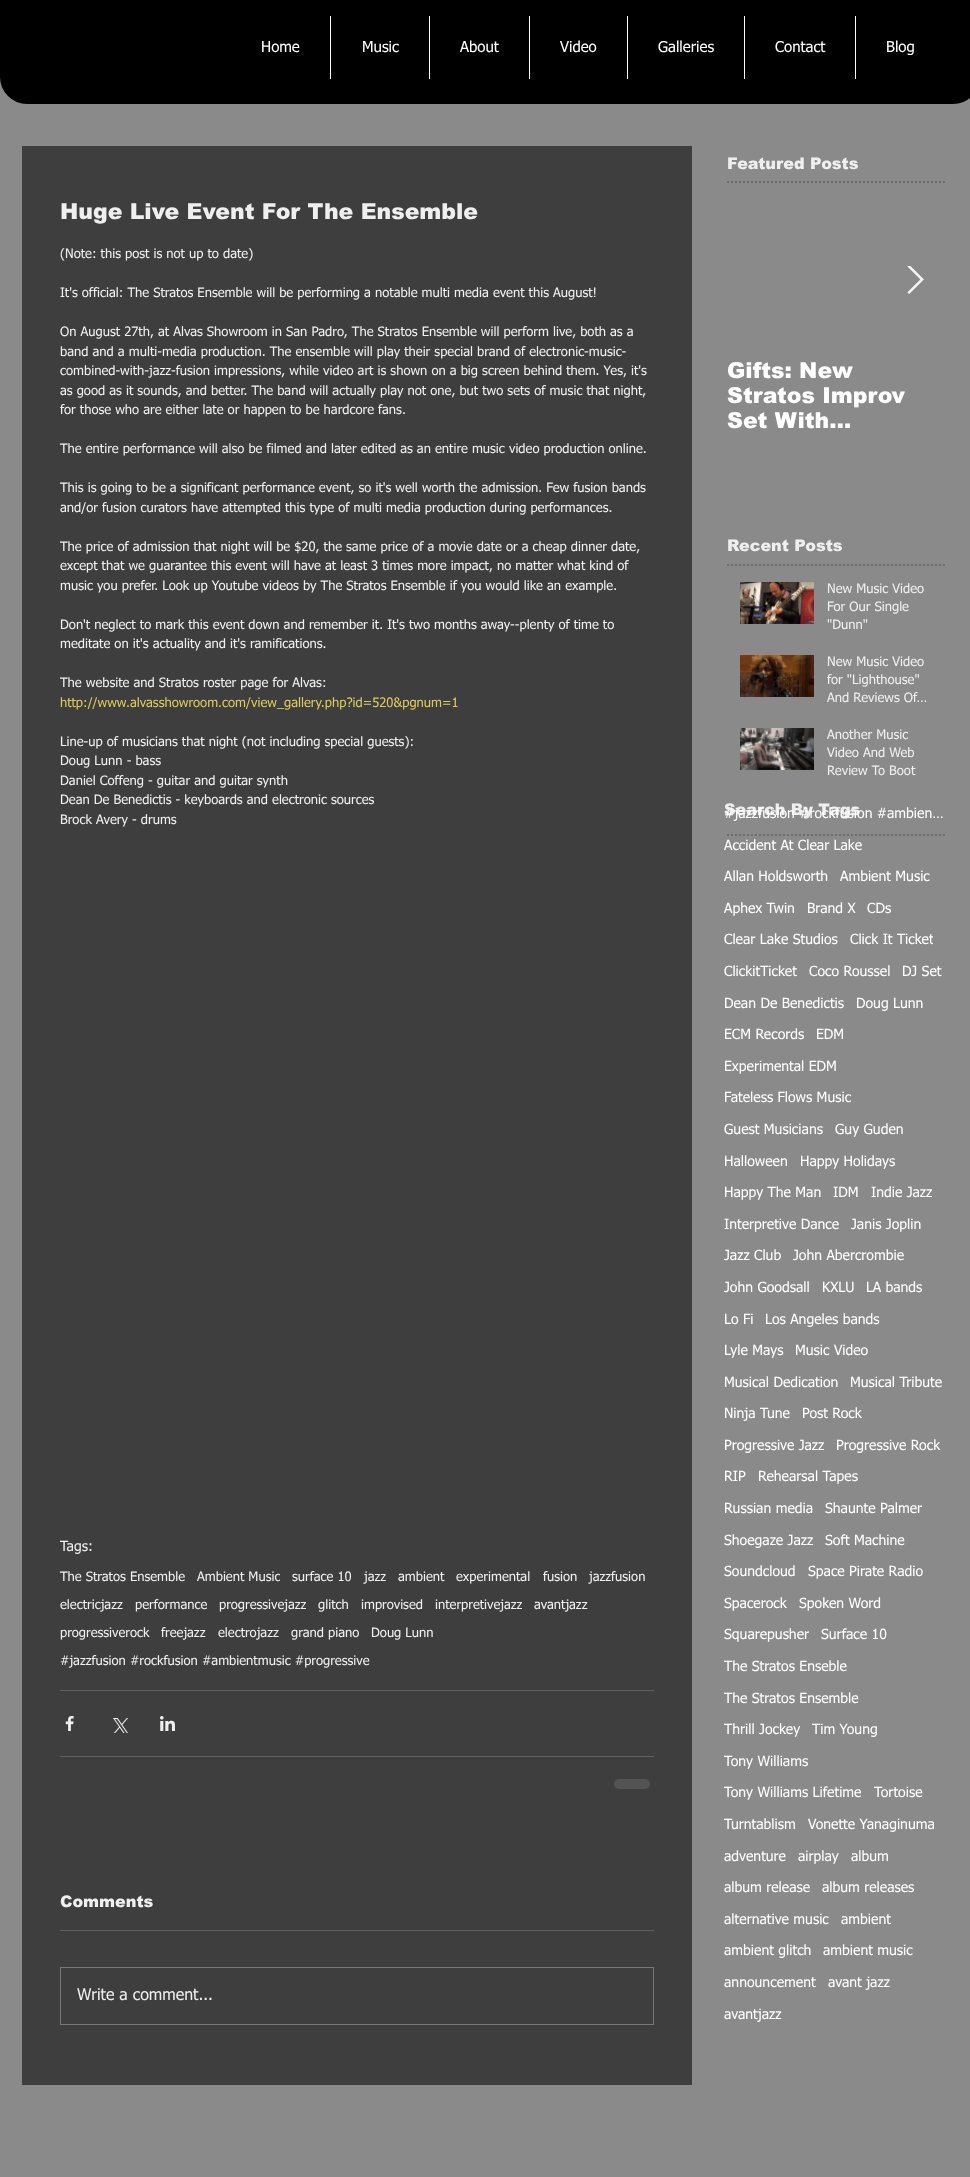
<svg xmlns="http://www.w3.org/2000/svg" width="970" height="2177">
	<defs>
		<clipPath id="clip1"><rect x="197" y="1570" width="83" height="16" /></clipPath>
		<clipPath id="clip2"><rect x="850" y="931" width="83" height="20" /></clipPath>
	</defs>
	<rect width="100%" height="100%" fill="#8A8A8A" />
	<rect x="0" y="-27" width="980" height="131" rx="27" fill="#000000" />
	<text x="261" y="52" font-family="tahoma" font-size="15" fill="#FFFFFF">Home</text>
	<rect x="330" y="16" width="1" height="63" fill="#FFFFFF" />
	<text x="362" y="52" font-family="tahoma" font-size="15" fill="#FFFFFF">Music</text>
	<rect x="429" y="16" width="1" height="63" fill="#FFFFFF" />
	<text x="460" y="52" font-family="tahoma" font-size="15" fill="#FFFFFF">About</text>
	<rect x="529" y="16" width="1" height="63" fill="#FFFFFF" />
	<text x="560" y="52" font-family="tahoma" font-size="15" fill="#FFFFFF">Video</text>
	<rect x="627" y="16" width="1" height="63" fill="#FFFFFF" />
	<text x="658" y="52" font-family="tahoma" font-size="15" fill="#FFFFFF">Galleries</text>
	<rect x="744" y="16" width="1" height="63" fill="#FFFFFF" />
	<text x="775" y="52" font-family="tahoma" font-size="15" fill="#FFFFFF">Contact</text>
	<rect x="855" y="16" width="1" height="63" fill="#FFFFFF" />
	<text x="886" y="52" font-family="tahoma" font-size="15" fill="#FFFFFF">Blog</text>
	<rect x="22" y="146" width="670" height="1939" fill="#3E3E3E" />
	<text x="60" y="219" font-family="arial" font-size="22" font-weight="900" fill="#EFEFEF">Huge Live Event For The Ensemble</text>
	<g font-family="tahoma" font-size="13" fill="#EFEFEF">
		<text x="60" y="258">(Note: this post is not up to date)</text>
		<text x="60" y="297">It's official: The Stratos Ensemble will be performing a notable multi media event this August!</text>
		<text x="60" y="336">On August 27th, at Alvas Showroom in San Padro, The Stratos Ensemble will perform live, both as a</text>
		<text x="60" y="356">band and a multi-media production. The ensemble will play their special brand of electronic-music-</text>
		<text x="60" y="375">combined-with-jazz-fusion impressions, while video art is shown on a big screen behind them. Yes, it's</text>
		<text x="60" y="395">as good as it sounds, and better. The band will actually play not one, but two sets of music that night,</text>
		<text x="60" y="414">for those who are either late or happen to be hardcore fans.</text>
		<text x="60" y="453">The entire performance will also be filmed and later edited as an entire music video production online.</text>
		<text x="60" y="492">This is going to be a significant performance event, so it's well worth the admission. Few fusion bands</text>
		<text x="60" y="512">and/or fusion curators have attempted this type of multi media production during performances.</text>
		<text x="60" y="551">The price of admission that night will be $20, the same price of a movie date or a cheap dinner date,</text>
		<text x="60" y="570">except that we guarantee this event will have at least 3 times more impact, no matter what kind of</text>
		<text x="60" y="590">music you prefer. Look up Youtube videos by The Stratos Ensemble if you would like an example.</text>
		<text x="60" y="629">Don't neglect to mark this event down and remember it. It's two months away--plenty of time to</text>
		<text x="60" y="648">meditate on it's actuality and it's ramifications.</text>
		<text x="60" y="687">The website and Stratos roster page for Alvas:</text>
	</g>
	<text x="60" y="707" font-family="tahoma" font-size="13" fill="#DBCB5E">http://www.alvasshowroom.com/view_gallery.php?id=520&amp;pgnum=1</text>
	<g font-family="tahoma" font-size="13" fill="#EFEFEF">
		<text x="60" y="746">Line-up of musicians that night (not including special guests):</text>
		<text x="60" y="765">Doug Lunn - bass</text>
		<text x="60" y="785">Daniel Coffeng - guitar and guitar synth</text>
		<text x="60" y="804">Dean De Benedictis - keyboards and electronic sources</text>
		<text x="60" y="824">Brock Avery - drums</text>
	</g>
	<text x="60" y="1551" font-family="tahoma" font-size="14" fill="#EFEFEF">Tags:</text>
	<text x="60" y="1581" font-family="tahoma" font-size="13" fill="#EFEFEF">The Stratos Ensemble</text>
	<g clip-path="url(#clip1)">
		<text x="197" y="1581" font-family="tahoma" font-size="13" fill="#EFEFEF">Ambient Music</text>
	</g>
	<g font-family="tahoma" font-size="13" fill="#EFEFEF">
		<text x="292" y="1581">surface 10</text>
		<text x="364" y="1581">jazz</text>
		<text x="398" y="1581">ambient</text>
		<text x="456" y="1581">experimental</text>
		<text x="543" y="1581">fusion</text>
		<text x="589" y="1581">jazzfusion</text>
		<text x="60" y="1609">electricjazz</text>
		<text x="135" y="1609">performance</text>
		<text x="219" y="1609">progressivejazz</text>
		<text x="318" y="1609">glitch</text>
		<text x="361" y="1609">improvised</text>
		<text x="435" y="1609">interpretivejazz</text>
		<text x="534" y="1609">avantjazz</text>
		<text x="60" y="1637">progressiverock</text>
		<text x="161" y="1637">freejazz</text>
		<text x="218" y="1637">electrojazz</text>
		<text x="291" y="1637">grand piano</text>
		<text x="371" y="1637">Doug Lunn</text>
		<text x="60" y="1665">#jazzfusion #rockfusion #ambientmusic #progressive</text>
	</g>
	<rect x="60" y="1690" width="594" height="1" fill="#616161" />
	<image x="65" y="1716" width="9" height="15" href="assets/img1.png" />
	<image x="113" y="1718" width="15" height="15" href="assets/img2.png" />
	<image x="160" y="1716" width="15" height="15" href="assets/img3.png" />
	<rect x="60" y="1756" width="594" height="1" fill="#616161" />
	<rect x="614" y="1779" width="36" height="10" rx="5" fill="#535353" />
	<text x="60" y="1907" font-family="arial" font-size="16" font-weight="900" fill="#EFEFEF">Comments</text>
	<rect x="60" y="1930" width="594" height="1" fill="#616161" />
	<rect x="60.5" y="1967.5" width="593" height="57" fill="none" stroke="#787878" />
	<text x="77" y="2000" font-family="tahoma" font-size="16" fill="#EFEFEF">Write a comment...</text>
	<text x="727" y="169" font-family="arial" font-size="16" font-weight="900" fill="#EFEFEF">Featured Posts</text>
	<path d="M727 182H947" fill="none" stroke="#6E6C6C" stroke-width="2" stroke-dasharray="2 2" />
	<image x="907" y="266" width="17" height="28" href="assets/img4.png" />
	<g font-family="arial" font-size="22" font-weight="900" fill="#FFFFFF">
		<text x="727" y="378">Gifts: New</text>
		<text x="727" y="403">Stratos Improv</text>
		<text x="727" y="428">Set With…</text>
	</g>
	<text x="727" y="551" font-family="arial" font-size="16" font-weight="900" fill="#EFEFEF">Recent Posts</text>
	<path d="M727 565H947" fill="none" stroke="#6E6C6C" stroke-width="2" stroke-dasharray="2 2" />
	<image x="740" y="582" width="74" height="42" href="assets/img5.png" />
	<image x="740" y="623" width="74" height="1" href="assets/img6.png" />
	<g font-family="tahoma" font-size="13" fill="#EFEFEF">
		<text x="827" y="593">New Music Video</text>
		<text x="827" y="611">For Our Single</text>
		<text x="827" y="629">"Dunn"</text>
	</g>
	<image x="740" y="655" width="74" height="42" href="assets/img7.png" />
	<image x="740" y="696" width="74" height="1" href="assets/img8.png" />
	<g font-family="tahoma" font-size="13" fill="#EFEFEF">
		<text x="827" y="666">New Music Video</text>
		<text x="827" y="684">for "Lighthouse"</text>
		<text x="827" y="702">And Reviews Of…</text>
	</g>
	<image x="740" y="728" width="74" height="42" href="assets/img9.png" />
	<image x="740" y="769" width="74" height="1" href="assets/img10.png" />
	<g font-family="tahoma" font-size="13" fill="#EFEFEF">
		<text x="827" y="739">Another Music</text>
		<text x="827" y="757">Video And Web</text>
		<text x="827" y="775">Review To Boot</text>
	</g>
	<text x="724" y="815" font-family="arial" font-size="16" font-weight="900" fill="#EFEFEF">Search By Tags</text>
	<path d="M727 835H947" fill="none" stroke="#6E6C6C" stroke-width="2" stroke-dasharray="2 2" />
	<g font-family="tahoma" font-size="14" fill="#FFFFFF">
		<text x="724" y="818">#jazzfusion #rockfusion #ambien…</text>
		<text x="724" y="850">Accident At Clear Lake</text>
		<text x="724" y="881">Allan Holdsworth</text>
		<text x="840" y="881">Ambient Music</text>
		<text x="724" y="913">Aphex Twin</text>
		<text x="807" y="913">Brand X</text>
		<text x="867" y="913">CDs</text>
		<text x="724" y="944">Clear Lake Studios</text>
	</g>
	<g clip-path="url(#clip2)">
		<text x="850" y="944" font-family="tahoma" font-size="14" fill="#FFFFFF">Click It Ticket</text>
	</g>
	<g font-family="tahoma" font-size="14" fill="#FFFFFF">
		<text x="724" y="976">ClickitTicket</text>
		<text x="809" y="976">Coco Roussel</text>
		<text x="902" y="976">DJ Set</text>
		<text x="724" y="1008">Dean De Benedictis</text>
		<text x="856" y="1008">Doug Lunn</text>
		<text x="724" y="1039">ECM Records</text>
		<text x="816" y="1039">EDM</text>
		<text x="724" y="1071">Experimental EDM</text>
		<text x="724" y="1102">Fateless Flows Music</text>
		<text x="724" y="1134">Guest Musicians</text>
		<text x="835" y="1134">Guy Guden</text>
		<text x="724" y="1166">Halloween</text>
		<text x="800" y="1166">Happy Holidays</text>
		<text x="724" y="1197">Happy The Man</text>
		<text x="833" y="1197">IDM</text>
		<text x="871" y="1197">Indie Jazz</text>
		<text x="724" y="1229">Interpretive Dance</text>
		<text x="851" y="1229">Janis Joplin</text>
		<text x="724" y="1260">Jazz Club</text>
		<text x="793" y="1260">John Abercrombie</text>
		<text x="724" y="1292">John Goodsall</text>
		<text x="822" y="1292">KXLU</text>
		<text x="866" y="1292">LA bands</text>
		<text x="724" y="1324">Lo Fi</text>
		<text x="765" y="1324">Los Angeles bands</text>
		<text x="724" y="1355">Lyle Mays</text>
		<text x="795" y="1355">Music Video</text>
		<text x="724" y="1387">Musical Dedication</text>
		<text x="850" y="1387">Musical Tribute</text>
		<text x="724" y="1418">Ninja Tune</text>
		<text x="802" y="1418">Post Rock</text>
		<text x="724" y="1450">Progressive Jazz</text>
		<text x="836" y="1450">Progressive Rock</text>
		<text x="724" y="1481">RIP</text>
		<text x="758" y="1481">Rehearsal Tapes</text>
		<text x="724" y="1513">Russian media</text>
		<text x="825" y="1513">Shaunte Palmer</text>
		<text x="724" y="1545">Shoegaze Jazz</text>
		<text x="825" y="1545">Soft Machine</text>
		<text x="724" y="1576">Soundcloud</text>
		<text x="808" y="1576">Space Pirate Radio</text>
		<text x="724" y="1608">Spacerock</text>
		<text x="799" y="1608">Spoken Word</text>
		<text x="724" y="1639">Squarepusher</text>
		<text x="821" y="1639">Surface 10</text>
		<text x="724" y="1671">The Stratos Enseble</text>
		<text x="724" y="1703">The Stratos Ensemble</text>
		<text x="724" y="1734">Thrill Jockey</text>
		<text x="812" y="1734">Tim Young</text>
		<text x="724" y="1766">Tony Williams</text>
		<text x="724" y="1797">Tony Williams Lifetime</text>
		<text x="874" y="1797">Tortoise</text>
		<text x="724" y="1829">Turntablism</text>
		<text x="808" y="1829">Vonette Yanaginuma</text>
		<text x="724" y="1861">adventure</text>
		<text x="798" y="1861">airplay</text>
		<text x="851" y="1861">album</text>
		<text x="724" y="1892">album release</text>
		<text x="822" y="1892">album releases</text>
		<text x="724" y="1924">alternative music</text>
		<text x="841" y="1924">ambient</text>
		<text x="724" y="1955">ambient glitch</text>
		<text x="823" y="1955">ambient music</text>
		<text x="724" y="1987">announcement</text>
		<text x="828" y="1987">avant jazz</text>
		<text x="724" y="2019">avantjazz</text>
	</g>
</svg>
